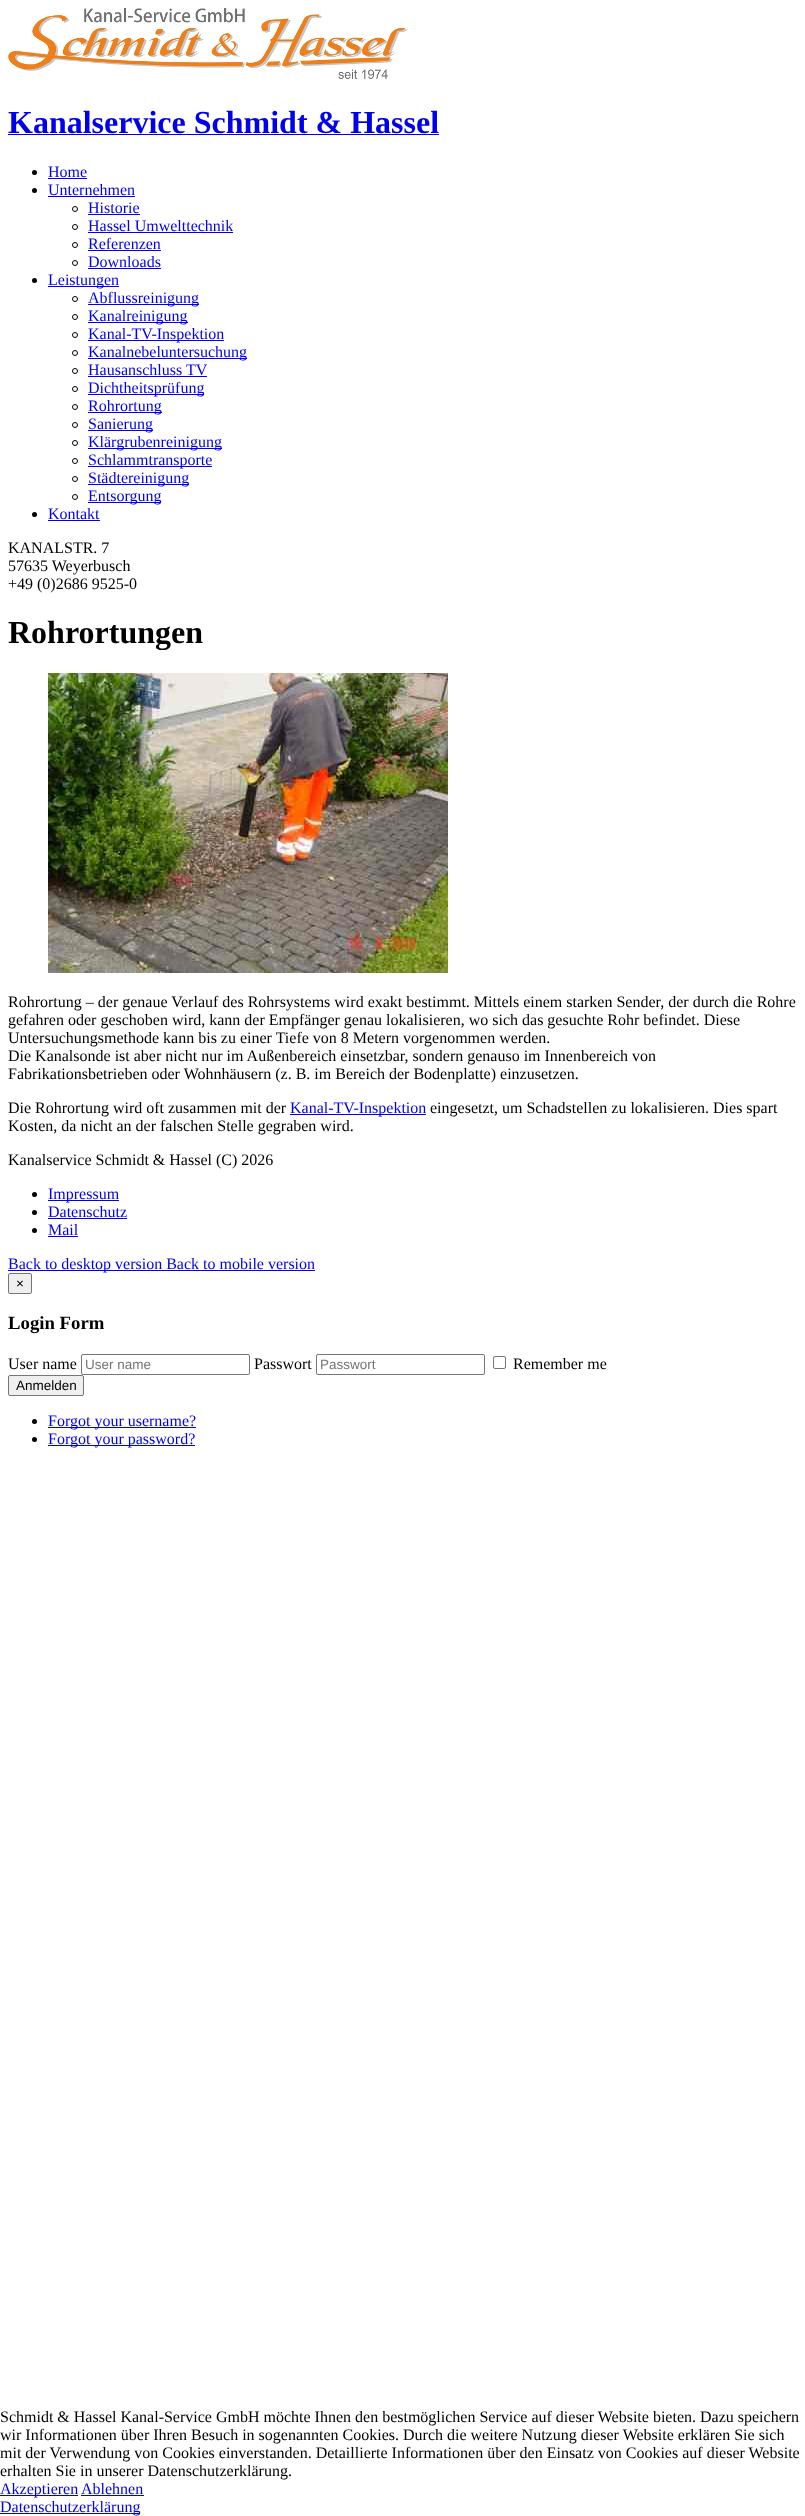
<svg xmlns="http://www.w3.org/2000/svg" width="805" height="2516">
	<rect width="100%" height="100%" fill="#FFFFFF" />
	<image x="8" y="8" width="400" height="71" href="assets/img1.png" />
	<text x="8" y="133" font-family="Liberation Serif" font-size="32" font-weight="700" fill="#0000EE">Kanalservice Schmidt &amp; Hassel</text>
	<rect x="8" y="134" width="431" height="1" fill="#0000EE" />
	<circle cx="34.5" cy="172.5" r="2.5" fill="#000000" />
	<text x="48" y="177" font-family="Liberation Serif" font-size="16" fill="#0000EE">Home</text>
	<rect x="48" y="178" width="39" height="1" fill="#0000EE" />
	<circle cx="34.5" cy="190.5" r="2.5" fill="#000000" />
	<text x="48" y="195" font-family="Liberation Serif" font-size="16" fill="#0000EE">Unternehmen</text>
	<rect x="48" y="196" width="87" height="1" fill="#0000EE" />
	<circle cx="75" cy="209" r="2.5" fill="none" stroke="#000000" />
	<text x="88" y="213" font-family="Liberation Serif" font-size="16" fill="#0000EE">Historie</text>
	<rect x="88" y="214" width="52" height="1" fill="#0000EE" />
	<circle cx="75" cy="227" r="2.5" fill="none" stroke="#000000" />
	<text x="88" y="231" font-family="Liberation Serif" font-size="16" fill="#0000EE">Hassel Umwelttechnik</text>
	<rect x="88" y="232" width="145" height="1" fill="#0000EE" />
	<circle cx="75" cy="245" r="2.5" fill="none" stroke="#000000" />
	<text x="88" y="249" font-family="Liberation Serif" font-size="16" fill="#0000EE">Referenzen</text>
	<rect x="88" y="250" width="73" height="1" fill="#0000EE" />
	<circle cx="75" cy="263" r="2.5" fill="none" stroke="#000000" />
	<text x="88" y="267" font-family="Liberation Serif" font-size="16" fill="#0000EE">Downloads</text>
	<rect x="88" y="268" width="73" height="1" fill="#0000EE" />
	<circle cx="34.5" cy="280.5" r="2.5" fill="#000000" />
	<rect x="48" y="286" width="71" height="1" fill="#0000EE" />
	<text x="48" y="285" font-family="Liberation Serif" font-size="16" fill="#0000EE">Leistungen</text>
	<circle cx="75" cy="299" r="2.5" fill="none" stroke="#000000" />
	<rect x="88" y="304" width="111" height="1" fill="#0000EE" />
	<text x="88" y="303" font-family="Liberation Serif" font-size="16" fill="#0000EE">Abflussreinigung</text>
	<circle cx="75" cy="317" r="2.5" fill="none" stroke="#000000" />
	<rect x="88" y="322" width="100" height="1" fill="#0000EE" />
	<text x="88" y="321" font-family="Liberation Serif" font-size="16" fill="#0000EE">Kanalreinigung</text>
	<circle cx="75" cy="335" r="2.5" fill="none" stroke="#000000" />
	<rect x="88" y="340" width="136" height="1" fill="#0000EE" />
	<text x="88" y="339" font-family="Liberation Serif" font-size="16" fill="#0000EE">Kanal-TV-Inspektion</text>
	<circle cx="75" cy="353" r="2.5" fill="none" stroke="#000000" />
	<rect x="88" y="358" width="159" height="1" fill="#0000EE" />
	<text x="88" y="357" font-family="Liberation Serif" font-size="16" fill="#0000EE">Kanalnebeluntersuchung</text>
	<circle cx="75" cy="371" r="2.5" fill="none" stroke="#000000" />
	<text x="88" y="375" font-family="Liberation Serif" font-size="16" fill="#0000EE">Hausanschluss TV</text>
	<rect x="88" y="376" width="119" height="1" fill="#0000EE" />
	<circle cx="75" cy="389" r="2.5" fill="none" stroke="#000000" />
	<rect x="88" y="394" width="116" height="1" fill="#0000EE" />
	<text x="88" y="393" font-family="Liberation Serif" font-size="16" fill="#0000EE">Dichtheitsprüfung</text>
	<circle cx="75" cy="407" r="2.5" fill="none" stroke="#000000" />
	<rect x="88" y="412" width="74" height="1" fill="#0000EE" />
	<text x="88" y="411" font-family="Liberation Serif" font-size="16" fill="#0000EE">Rohrortung</text>
	<circle cx="75" cy="425" r="2.5" fill="none" stroke="#000000" />
	<rect x="88" y="430" width="65" height="1" fill="#0000EE" />
	<text x="88" y="429" font-family="Liberation Serif" font-size="16" fill="#0000EE">Sanierung</text>
	<circle cx="75" cy="443" r="2.5" fill="none" stroke="#000000" />
	<rect x="88" y="448" width="134" height="1" fill="#0000EE" />
	<text x="88" y="447" font-family="Liberation Serif" font-size="16" fill="#0000EE">Klärgrubenreinigung</text>
	<circle cx="75" cy="461" r="2.5" fill="none" stroke="#000000" />
	<rect x="88" y="466" width="124" height="1" fill="#0000EE" />
	<text x="88" y="465" font-family="Liberation Serif" font-size="16" fill="#0000EE">Schlammtransporte</text>
	<circle cx="75" cy="479" r="2.5" fill="none" stroke="#000000" />
	<rect x="88" y="484" width="101" height="1" fill="#0000EE" />
	<text x="88" y="483" font-family="Liberation Serif" font-size="16" fill="#0000EE">Städtereinigung</text>
	<circle cx="75" cy="497" r="2.5" fill="none" stroke="#000000" />
	<rect x="88" y="502" width="73" height="1" fill="#0000EE" />
	<text x="88" y="501" font-family="Liberation Serif" font-size="16" fill="#0000EE">Entsorgung</text>
	<circle cx="34.5" cy="514.5" r="2.5" fill="#000000" />
	<text x="48" y="519" font-family="Liberation Serif" font-size="16" fill="#0000EE">Kontakt</text>
	<rect x="48" y="520" width="52" height="1" fill="#0000EE" />
	<g font-family="Liberation Serif" font-size="16" fill="#000000">
		<text x="8" y="553">KANALSTR. 7</text>
		<text x="8" y="571">57635 Weyerbusch</text>
		<text x="8" y="589">+49 (0)2686 9525-0</text>
	</g>
	<text x="8" y="643" font-family="Liberation Serif" font-size="32" font-weight="700" fill="#000000">Rohrortungen</text>
	<image x="48" y="673" width="400" height="300" href="assets/img2.png" />
	<g font-family="Liberation Serif" font-size="16" fill="#000000">
		<text x="8" y="1007">Rohrortung – der genaue Verlauf des Rohrsystems wird exakt bestimmt. Mittels einem starken Sender, der durch die Rohre</text>
		<text x="8" y="1025">gefahren oder geschoben wird, kann der Empfänger genau lokalisieren, wo sich das gesuchte Rohr befindet. Diese</text>
		<text x="8" y="1043">Untersuchungsmethode kann bis zu einer Tiefe von 8 Metern vorgenommen werden.</text>
		<text x="8" y="1061">Die Kanalsonde ist aber nicht nur im Außenbereich einsetzbar, sondern genauso im Innenbereich von</text>
		<text x="8" y="1079">Fabrikationsbetrieben oder Wohnhäusern (z. B. im Bereich der Bodenplatte) einzusetzen.</text>
		<text x="8" y="1113">Die Rohrortung wird oft zusammen mit der</text>
	</g>
	<rect x="290" y="1114" width="136" height="1" fill="#0000EE" />
	<text x="290" y="1113" font-family="Liberation Serif" font-size="16" fill="#0000EE">Kanal-TV-Inspektion</text>
	<g font-family="Liberation Serif" font-size="16" fill="#000000">
		<text x="430" y="1113">eingesetzt, um Schadstellen zu lokalisieren. Dies spart</text>
		<text x="8" y="1131">Kosten, da nicht an der falschen Stelle gegraben wird.</text>
		<text x="8" y="1165">Kanalservice Schmidt &amp; Hassel (C) 2026</text>
	</g>
	<circle cx="34.5" cy="1194.5" r="2.5" fill="#000000" />
	<rect x="48" y="1200" width="71" height="1" fill="#0000EE" />
	<text x="48" y="1199" font-family="Liberation Serif" font-size="16" fill="#0000EE">Impressum</text>
	<circle cx="34.5" cy="1212.5" r="2.5" fill="#000000" />
	<text x="48" y="1217" font-family="Liberation Serif" font-size="16" fill="#0000EE">Datenschutz</text>
	<rect x="48" y="1218" width="79" height="1" fill="#0000EE" />
	<circle cx="34.5" cy="1230.5" r="2.5" fill="#000000" />
	<text x="48" y="1235" font-family="Liberation Serif" font-size="16" fill="#0000EE">Mail</text>
	<rect x="48" y="1236" width="30" height="1" fill="#0000EE" />
	<rect x="8" y="1270" width="307" height="1" fill="#0000EE" />
	<text x="8" y="1269" font-family="Liberation Serif" font-size="16" fill="#0000EE">Back to desktop version Back to mobile version</text>
	<rect x="8.5" y="1273.5" width="23" height="20" rx="1.5" fill="#EFEFEF" stroke="#767676" />
	<text x="16" y="1288" font-family="Liberation Sans" font-size="13.5" fill="#000000">×</text>
	<text x="8" y="1329" font-family="Liberation Serif" font-size="18.75" font-weight="700" fill="#000000">Login Form</text>
	<text x="8" y="1369" font-family="Liberation Serif" font-size="16" fill="#000000">User name</text>
	<rect x="81.5" y="1354.5" width="168" height="20" rx="1.5" fill="none" stroke="#767676" />
	<text x="85" y="1369" font-family="Liberation Sans" font-size="13.5" fill="#757575">User name</text>
	<text x="254" y="1369" font-family="Liberation Serif" font-size="16" fill="#000000">Passwort</text>
	<rect x="316.5" y="1354.5" width="168" height="20" rx="1.5" fill="none" stroke="#767676" />
	<text x="320" y="1369" font-family="Liberation Sans" font-size="13.5" fill="#757575">Passwort</text>
	<rect x="493.5" y="1356.5" width="12" height="12" rx="1.5" fill="none" stroke="#767676" />
	<text x="513" y="1369" font-family="Liberation Serif" font-size="16" fill="#000000">Remember me</text>
	<rect x="8.5" y="1375.5" width="75" height="20" rx="1.5" fill="#EFEFEF" stroke="#767676" />
	<text x="16" y="1390" font-family="Liberation Sans" font-size="13.5" fill="#000000">Anmelden</text>
	<circle cx="34.5" cy="1421.5" r="2.5" fill="#000000" />
	<rect x="48" y="1427" width="148" height="1" fill="#0000EE" />
	<text x="48" y="1426" font-family="Liberation Serif" font-size="16" fill="#0000EE">Forgot your username?</text>
	<circle cx="34.5" cy="1439.5" r="2.5" fill="#000000" />
	<rect x="48" y="1445" width="147" height="1" fill="#0000EE" />
	<text x="48" y="1444" font-family="Liberation Serif" font-size="16" fill="#0000EE">Forgot your password?</text>
	<g font-family="Liberation Serif" font-size="16" fill="#000000">
		<text x="0" y="2422">Schmidt &amp; Hassel Kanal-Service GmbH möchte Ihnen den bestmöglichen Service auf dieser Website bieten. Dazu speichern</text>
		<text x="0" y="2440">wir Informationen über Ihren Besuch in sogenannten Cookies. Durch die weitere Nutzung dieser Website erklären Sie sich</text>
		<text x="0" y="2458">mit der Verwendung von Cookies einverstanden. Detaillierte Informationen über den Einsatz von Cookies auf dieser Website</text>
		<text x="0" y="2476">erhalten Sie in unserer Datenschutzerklärung.</text>
	</g>
	<rect x="0" y="2495" width="78" height="1" fill="#0000EE" />
	<g font-family="Liberation Serif" font-size="16" fill="#0000EE">
		<text x="0" y="2494">Akzeptieren</text>
		<text x="81" y="2494">Ablehnen</text>
	</g>
	<rect x="81" y="2495" width="63" height="1" fill="#0000EE" />
	<rect x="0" y="2513" width="140" height="1" fill="#0000EE" />
	<text x="0" y="2512" font-family="Liberation Serif" font-size="16" fill="#0000EE">Datenschutzerklärung</text>
</svg>
